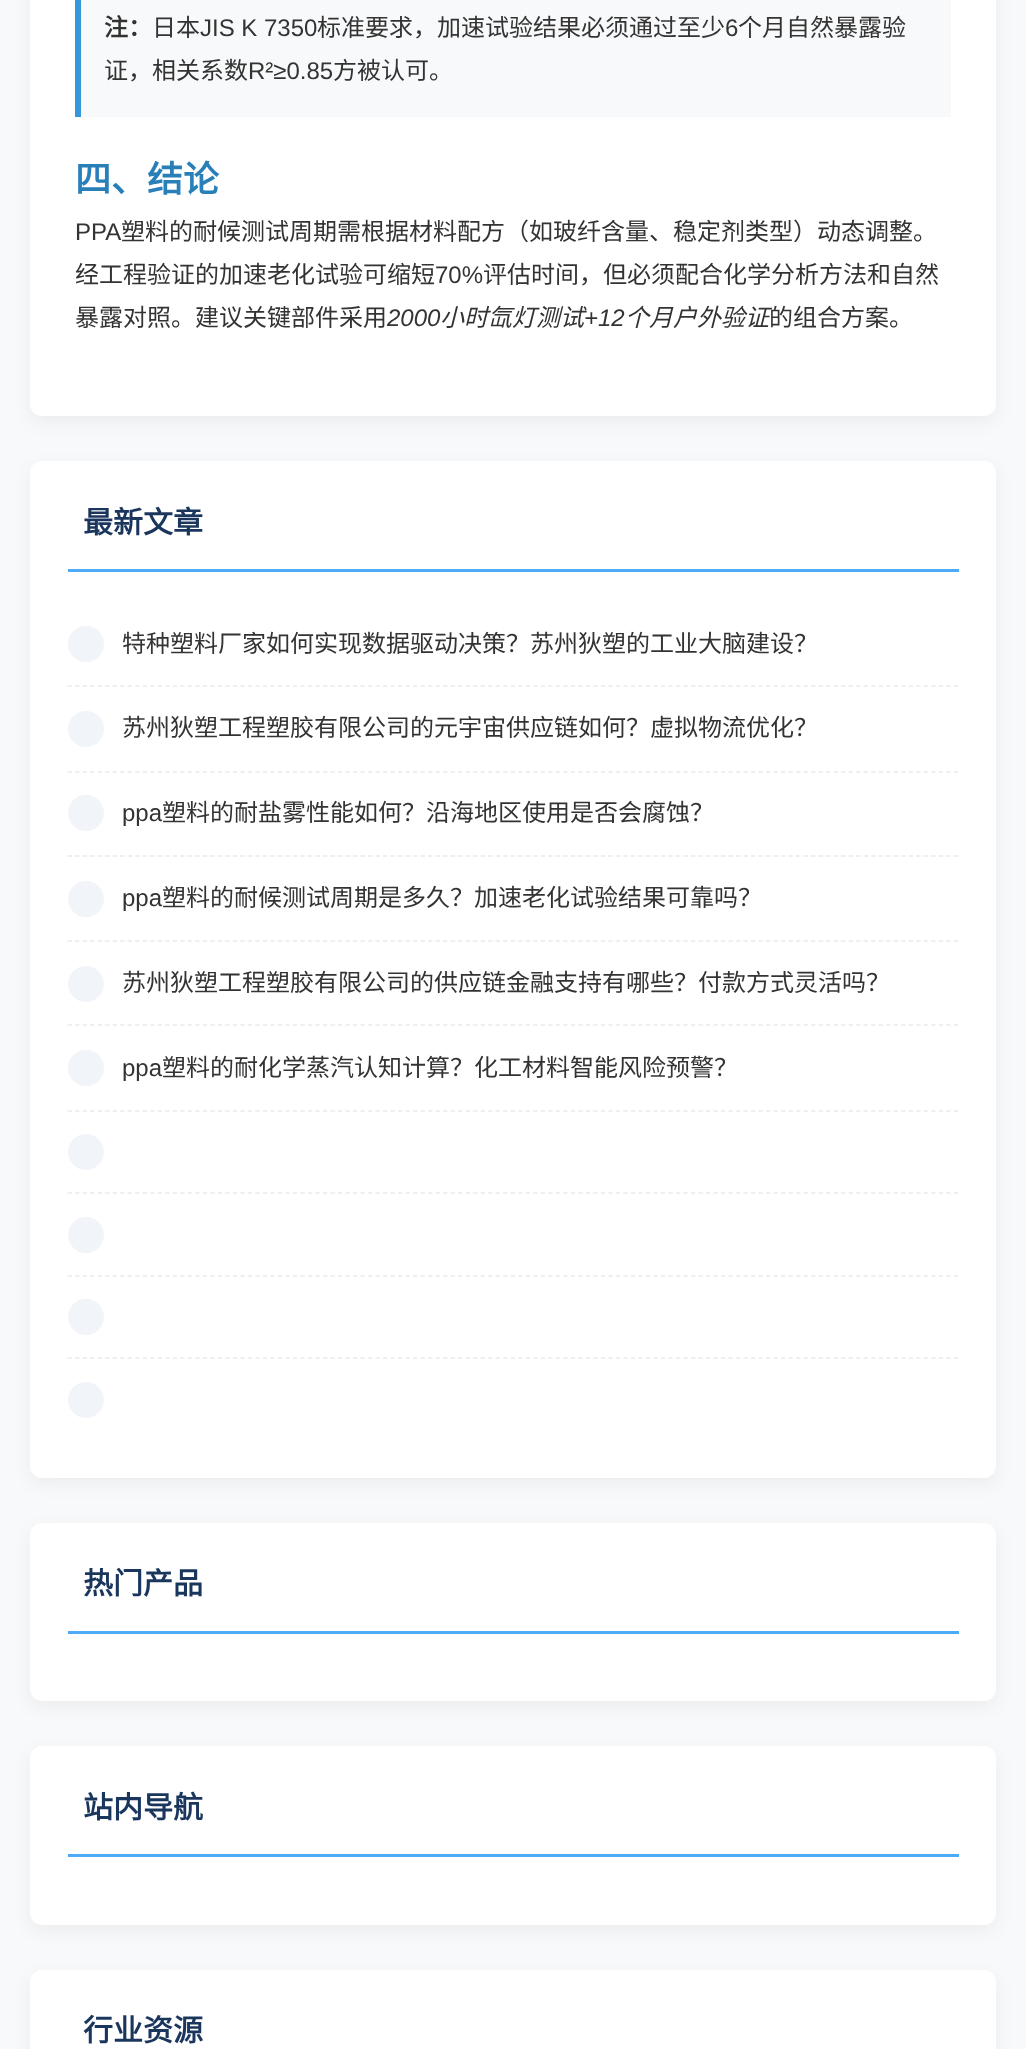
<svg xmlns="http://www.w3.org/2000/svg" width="1026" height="2049">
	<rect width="100%" height="100%" fill="#F8F9FA" />
	<rect x="30" y="-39" width="966" height="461" rx="12" fill="#000000" fill-opacity="0.05" filter="blur(9px)" />
	<rect x="30" y="-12" width="966" height="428" rx="12" fill="#FFFFFF" />
	<rect x="81" y="0" width="870" height="117" fill="#F8F9FA" />
	<rect x="75" y="0" width="6" height="117" fill="#3498DB" />
	<text x="104" y="36" font-family="Noto Sans CJK SC" font-size="24" font-weight="700" fill="#333333">注：</text>
	<text x="152" y="36" font-family="Noto Sans CJK SC" font-size="24" fill="#333333">日本</text>
	<text x="200" y="36" font-family="Liberation Sans" font-size="24" fill="#333333">JIS K 7350</text>
	<text x="317" y="36" font-family="Noto Sans CJK SC" font-size="24" fill="#333333">标准要求，加速试验结果必须通过至少</text>
	<text x="725" y="36" font-family="Liberation Sans" font-size="24" fill="#333333">6</text>
	<g font-family="Noto Sans CJK SC" font-size="24" fill="#333333">
		<text x="738" y="36">个月自然暴露验</text>
		<text x="104" y="79">证，相关系数</text>
	</g>
	<text x="248" y="79" font-family="Liberation Sans" font-size="24" fill="#333333">R²≥0.85</text>
	<text x="333" y="79" font-family="Noto Sans CJK SC" font-size="24" fill="#333333">方被认可。</text>
	<text x="75" y="192" font-family="Noto Sans CJK SC" font-size="36" font-weight="700" fill="#2980B9">四、结论</text>
	<text x="75" y="240" font-family="Liberation Sans" font-size="24" fill="#333333">PPA</text>
	<g font-family="Noto Sans CJK SC" font-size="24" fill="#333333">
		<text x="121" y="240">塑料的耐候测试周期需根据材料配方（如玻纤含量、稳定剂类型）动态调整。</text>
		<text x="75" y="283">经工程验证的加速老化试验可缩短</text>
	</g>
	<text x="435" y="283" font-family="Liberation Sans" font-size="24" fill="#333333">70%</text>
	<g font-family="Noto Sans CJK SC" font-size="24" fill="#333333">
		<text x="483" y="283">评估时间，但必须配合化学分析方法和自然</text>
		<text x="75" y="326">暴露对照。建议关键部件采用</text>
	</g>
	<text x="387" y="326" font-family="Liberation Sans" font-size="24" font-style="italic" fill="#333333">2000</text>
	<text x="440" y="326" font-family="Noto Sans CJK SC" font-size="24" font-style="italic" fill="#333333">小时氙灯测试</text>
	<text x="584" y="326" font-family="Liberation Sans" font-size="24" font-style="italic" fill="#333333">+12</text>
	<text x="625" y="326" font-family="Noto Sans CJK SC" font-size="24" font-style="italic" fill="#333333">个月户外验证</text>
	<text x="769" y="326" font-family="Noto Sans CJK SC" font-size="24" fill="#333333">的组合方案。</text>
	<rect x="30" y="467" width="966" height="1017" rx="12" fill="#000000" fill-opacity="0.05" filter="blur(9px)" />
	<rect x="30" y="461" width="966" height="1017" rx="12" fill="#FFFFFF" />
	<rect x="68" y="569" width="891" height="3" fill="#4DABF7" />
	<text x="83" y="533" font-family="Noto Sans CJK SC" font-size="30" font-weight="700" fill="#1A365D">最新文章</text>
	<path d="M67.5 686H958.5" fill="none" stroke="#EAEAEA" stroke-width="1.5" stroke-dasharray="4.5 3.01" />
	<circle cx="86" cy="644" r="18" fill="#F1F5F9" />
	<text x="122" y="652" font-family="Noto Sans CJK SC" font-size="24" fill="#333333">特种塑料厂家如何实现数据驱动决策？苏州狄塑的工业大脑建设？</text>
	<path d="M67.5 772H958.5" fill="none" stroke="#EAEAEA" stroke-width="1.5" stroke-dasharray="4.5 3.01" />
	<circle cx="86" cy="729" r="18" fill="#F1F5F9" />
	<text x="122" y="736" font-family="Noto Sans CJK SC" font-size="24" fill="#333333">苏州狄塑工程塑胶有限公司的元宇宙供应链如何？虚拟物流优化？</text>
	<path d="M67.5 856H958.5" fill="none" stroke="#EAEAEA" stroke-width="1.5" stroke-dasharray="4.5 3.01" />
	<circle cx="86" cy="813" r="18" fill="#F1F5F9" />
	<text x="122" y="821" font-family="Liberation Sans" font-size="24" fill="#333333">ppa</text>
	<text x="162" y="821" font-family="Noto Sans CJK SC" font-size="24" fill="#333333">塑料的耐盐雾性能如何？沿海地区使用是否会腐蚀？</text>
	<path d="M67.5 941H958.5" fill="none" stroke="#EAEAEA" stroke-width="1.5" stroke-dasharray="4.5 3.01" />
	<circle cx="86" cy="899" r="18" fill="#F1F5F9" />
	<text x="122" y="906" font-family="Liberation Sans" font-size="24" fill="#333333">ppa</text>
	<text x="162" y="906" font-family="Noto Sans CJK SC" font-size="24" fill="#333333">塑料的耐候测试周期是多久？加速老化试验结果可靠吗？</text>
	<path d="M67.5 1025H958.5" fill="none" stroke="#EAEAEA" stroke-width="1.5" stroke-dasharray="4.5 3.01" />
	<circle cx="86" cy="984" r="18" fill="#F1F5F9" />
	<text x="122" y="991" font-family="Noto Sans CJK SC" font-size="24" fill="#333333">苏州狄塑工程塑胶有限公司的供应链金融支持有哪些？付款方式灵活吗？</text>
	<path d="M67.5 1111H958.5" fill="none" stroke="#EAEAEA" stroke-width="1.5" stroke-dasharray="4.5 3.01" />
	<circle cx="86" cy="1068" r="18" fill="#F1F5F9" />
	<text x="122" y="1076" font-family="Liberation Sans" font-size="24" fill="#333333">ppa</text>
	<text x="162" y="1076" font-family="Noto Sans CJK SC" font-size="24" fill="#333333">塑料的耐化学蒸汽认知计算？化工材料智能风险预警？</text>
	<path d="M67.5 1193H958.5" fill="none" stroke="#EAEAEA" stroke-width="1.5" stroke-dasharray="4.5 3.01" />
	<circle cx="86" cy="1152" r="18" fill="#F1F5F9" />
	<path d="M67.5 1276H958.5" fill="none" stroke="#EAEAEA" stroke-width="1.5" stroke-dasharray="4.5 3.01" />
	<circle cx="86" cy="1235" r="18" fill="#F1F5F9" />
	<path d="M67.5 1358H958.5" fill="none" stroke="#EAEAEA" stroke-width="1.5" stroke-dasharray="4.5 3.01" />
	<circle cx="86" cy="1317" r="18" fill="#F1F5F9" />
	<circle cx="86" cy="1400" r="18" fill="#F1F5F9" />
	<rect x="30" y="1529" width="966" height="178" rx="12" fill="#000000" fill-opacity="0.05" filter="blur(9px)" />
	<rect x="30" y="1523" width="966" height="178" rx="12" fill="#FFFFFF" />
	<rect x="68" y="1631" width="891" height="3" fill="#4DABF7" />
	<text x="83" y="1594" font-family="Noto Sans CJK SC" font-size="30" font-weight="700" fill="#1A365D">热门产品</text>
	<rect x="30" y="1752" width="966" height="179" rx="12" fill="#000000" fill-opacity="0.05" filter="blur(9px)" />
	<rect x="30" y="1746" width="966" height="179" rx="12" fill="#FFFFFF" />
	<rect x="68" y="1854" width="891" height="3" fill="#4DABF7" />
	<text x="83" y="1818" font-family="Noto Sans CJK SC" font-size="30" font-weight="700" fill="#1A365D">站内导航</text>
	<rect x="30" y="1976" width="966" height="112" rx="12" fill="#000000" fill-opacity="0.05" filter="blur(9px)" />
	<rect x="30" y="1970" width="966" height="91" rx="12" fill="#FFFFFF" />
	<text x="83" y="2041" font-family="Noto Sans CJK SC" font-size="30" font-weight="700" fill="#1A365D">行业资源</text>
</svg>
